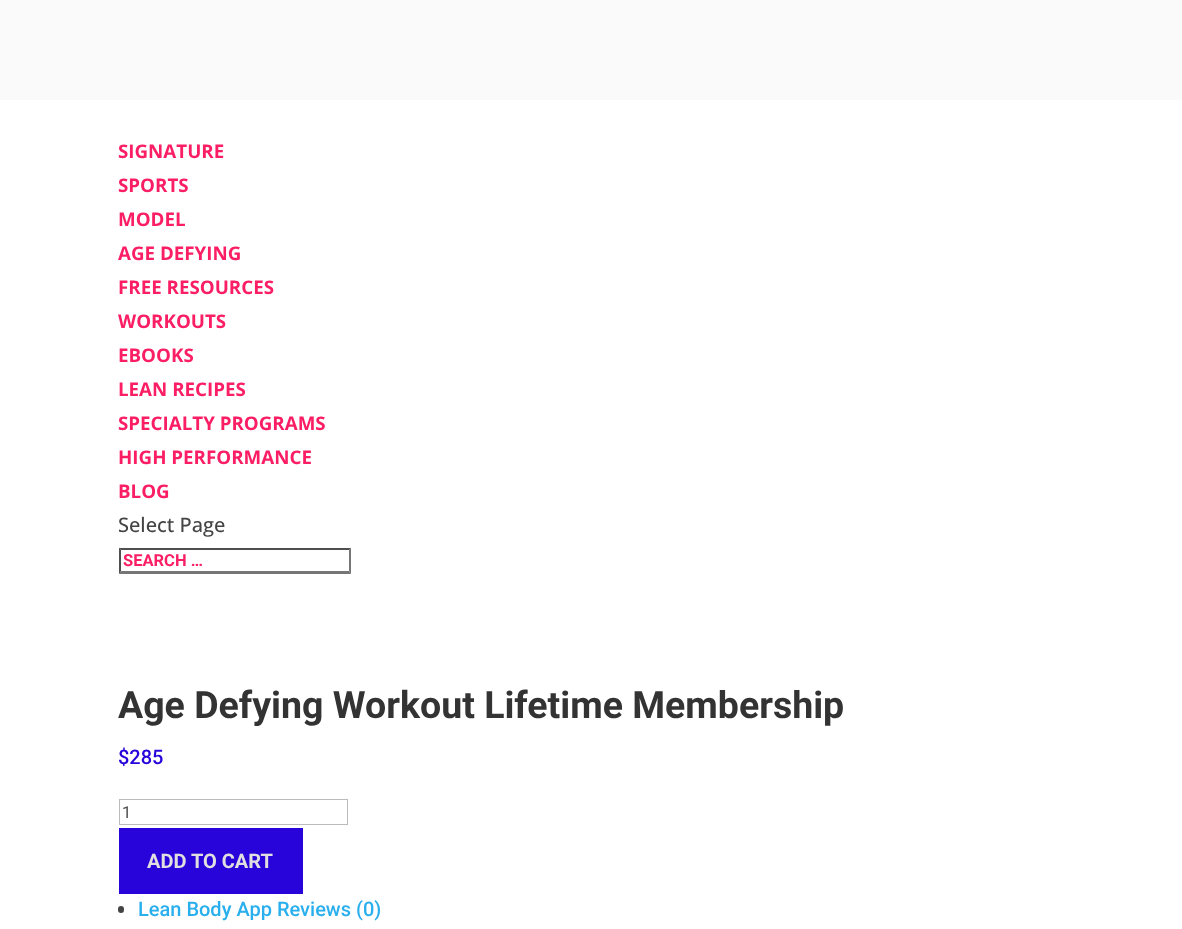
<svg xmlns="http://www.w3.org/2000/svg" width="1182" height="929">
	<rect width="100%" height="100%" fill="#FAFAFA" />
	<rect x="0" y="100" width="1182" height="829" fill="#FFFFFF" />
	<g font-family="Open Sans" font-size="18.75" font-weight="700" fill="#FB1E64">
		<text x="118" y="158">SIGNATURE</text>
		<text x="118" y="192">SPORTS</text>
		<text x="118" y="226">MODEL</text>
		<text x="118" y="260">AGE DEFYING</text>
		<text x="118" y="294">FREE RESOURCES</text>
		<text x="118" y="328">WORKOUTS</text>
		<text x="118" y="362">EBOOKS</text>
		<text x="118" y="396">LEAN RECIPES</text>
		<text x="118" y="430">SPECIALTY PROGRAMS</text>
		<text x="118" y="464">HIGH PERFORMANCE</text>
		<text x="118" y="498">BLOG</text>
	</g>
	<text x="118" y="532" font-family="Open Sans" font-size="20" font-weight="500" fill="#444444">Select Page</text>
	<path d="M119 548H351L349 550H121Z" fill="#4F4F4F" />
	<path d="M351 547.5V574L349 571V550Z" fill="#767676" />
	<path d="M351 574H119L121 571H349Z" fill="#767676" />
	<path d="M119 574V547.5L121 550V571Z" fill="#4F4F4F" />
	<text x="123" y="566" font-family="Roboto" font-size="16.5" font-weight="700" fill="#FB1E64">SEARCH …</text>
	<text x="118" y="718" font-family="Roboto" font-size="37.5" font-weight="700" fill="#333333">Age Defying Workout Lifetime Membership</text>
	<text x="118" y="764" font-family="Roboto" font-size="20" font-weight="500" fill="#2804DB">$285</text>
	<rect x="119.5" y="799.5" width="228" height="25" fill="none" stroke="#BBBBBB" />
	<text x="122" y="818" font-family="Roboto" font-size="16.5" fill="#4E4E4E">1</text>
	<rect x="119" y="828" width="184" height="66" fill="#2804DB" />
	<text x="147" y="868" font-family="Roboto" font-size="20" font-weight="700" fill="#E0E0E0">ADD TO CART</text>
	<rect x="118" y="906" width="6" height="7" rx="3" fill="#444444" />
	<text x="138" y="916" font-family="Roboto" font-size="20" font-weight="500" fill="#29AFED">Lean Body App Reviews (0)</text>
</svg>
